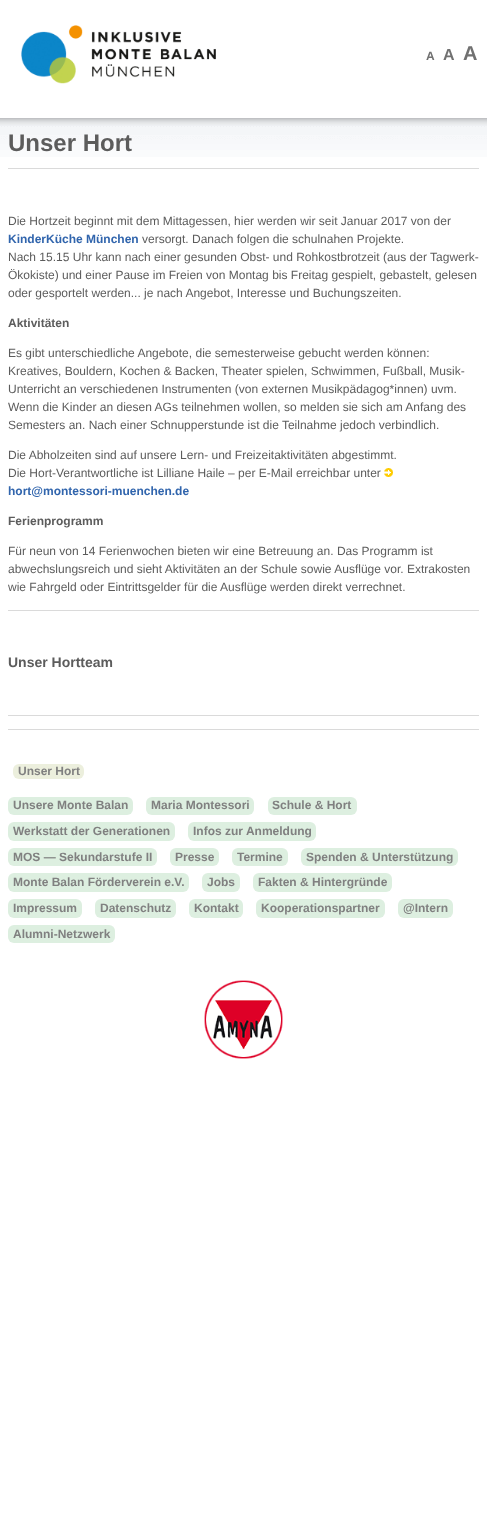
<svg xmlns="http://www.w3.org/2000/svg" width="487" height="1527">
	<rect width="100%" height="100%" fill="#FFFFFF" />
	<image x="0" y="118" width="487" height="39" href="assets/img1.png" />
	<image x="21" y="25" width="195" height="59" href="assets/img2.png" />
	<text x="426" y="60" font-family="Liberation Sans" font-size="12" font-weight="700" fill="#717171">A</text>
	<text x="443" y="60" font-family="Liberation Sans" font-size="16" font-weight="700" fill="#717171">A</text>
	<text x="463" y="60" font-family="Liberation Sans" font-size="20" font-weight="700" fill="#717171">A</text>
	<text x="8" y="151" font-family="Liberation Sans" font-size="24" font-weight="700" fill="#5C5C5C">Unser Hort</text>
	<rect x="8" y="168" width="471" height="1" fill="#DADADA" />
	<text x="8" y="225" font-family="Liberation Sans" font-size="12" fill="#5C5C5C">Die Hortzeit beginnt mit dem Mittagessen, hier werden wir seit Januar 2017 von der</text>
	<text x="8" y="243" font-family="Liberation Sans" font-size="12" font-weight="700" fill="#3165AD">KinderKüche München</text>
	<g font-family="Liberation Sans" font-size="12" fill="#5C5C5C">
		<text x="142" y="243">versorgt. Danach folgen die schulnahen Projekte.</text>
		<text x="8" y="261">Nach 15.15 Uhr kann nach einer gesunden Obst- und Rohkostbrotzeit (aus der Tagwerk-</text>
		<text x="8" y="279">Ökokiste) und einer Pause im Freien von Montag bis Freitag gespielt, gebastelt, gelesen</text>
		<text x="8" y="297">oder gesportelt werden... je nach Angebot, Interesse und Buchungszeiten.</text>
	</g>
	<text x="8" y="327" font-family="Liberation Sans" font-size="12" font-weight="700" fill="#5C5C5C">Aktivitäten</text>
	<g font-family="Liberation Sans" font-size="12" fill="#5C5C5C">
		<text x="8" y="357">Es gibt unterschiedliche Angebote, die semesterweise gebucht werden können:</text>
		<text x="8" y="375">Kreatives, Bouldern, Kochen &amp; Backen, Theater spielen, Schwimmen, Fußball, Musik-</text>
		<text x="8" y="393">Unterricht an verschiedenen Instrumenten (von externen Musikpädagog*innen) uvm.</text>
		<text x="8" y="411">Wenn die Kinder an diesen AGs teilnehmen wollen, so melden sie sich am Anfang des</text>
		<text x="8" y="429">Semesters an. Nach einer Schnupperstunde ist die Teilnahme jedoch verbindlich.</text>
		<text x="8" y="459">Die Abholzeiten sind auf unsere Lern- und Freizeitaktivitäten abgestimmt.</text>
		<text x="8" y="477">Die Hort-Verantwortliche ist Lilliane Haile – per E-Mail erreichbar unter</text>
	</g>
	<image x="384" y="468" width="9" height="9" href="assets/img3.png" />
	<text x="8" y="495" font-family="Liberation Sans" font-size="12" font-weight="700" fill="#3165AD">hort@montessori-muenchen.de</text>
	<text x="8" y="525" font-family="Liberation Sans" font-size="12" font-weight="700" fill="#5C5C5C">Ferienprogramm</text>
	<g font-family="Liberation Sans" font-size="12" fill="#5C5C5C">
		<text x="8" y="555">Für neun von 14 Ferienwochen bieten wir eine Betreuung an. Das Programm ist</text>
		<text x="8" y="573">abwechslungsreich und sieht Aktivitäten an der Schule sowie Ausflüge vor. Extrakosten</text>
		<text x="8" y="591">wie Fahrgeld oder Eintrittsgelder für die Ausflüge werden direkt verrechnet.</text>
	</g>
	<rect x="8" y="610" width="471" height="1" fill="#DADADA" />
	<text x="8" y="667" font-family="Liberation Sans" font-size="14" font-weight="700" fill="#5C5C5C">Unser Hortteam</text>
	<rect x="8" y="715" width="471" height="1" fill="#DADADA" />
	<rect x="8" y="729" width="471" height="1" fill="#DADADA" />
	<rect x="13" y="764" width="71" height="15" rx="6" fill="#ECEFDD" />
	<text x="18" y="775" font-family="Liberation Sans" font-size="12" font-weight="700" fill="#808080">Unser Hort</text>
	<rect x="8" y="797" width="125" height="18" rx="6" fill="#DDEFE0" />
	<text x="13" y="809" font-family="Liberation Sans" font-size="12" font-weight="700" fill="#808080">Unsere Monte Balan</text>
	<rect x="146" y="797" width="108" height="18" rx="6" fill="#DDEFE0" />
	<text x="151" y="809" font-family="Liberation Sans" font-size="12" font-weight="700" fill="#808080">Maria Montessori</text>
	<rect x="268" y="797" width="89" height="18" rx="6" fill="#DDEFE0" />
	<text x="272" y="809" font-family="Liberation Sans" font-size="12" font-weight="700" fill="#808080">Schule &amp; Hort</text>
	<rect x="8" y="822" width="167" height="19" rx="6" fill="#DDEFE0" />
	<text x="13" y="835" font-family="Liberation Sans" font-size="12" font-weight="700" fill="#808080">Werkstatt der Generationen</text>
	<rect x="188" y="822" width="128" height="19" rx="6" fill="#DDEFE0" />
	<text x="193" y="835" font-family="Liberation Sans" font-size="12" font-weight="700" fill="#808080">Infos zur Anmeldung</text>
	<rect x="8" y="848" width="149" height="18" rx="6" fill="#DDEFE0" />
	<text x="13" y="861" font-family="Liberation Sans" font-size="12" font-weight="700" fill="#808080">MOS — Sekundarstufe II</text>
	<rect x="170" y="848" width="49" height="18" rx="6" fill="#DDEFE0" />
	<text x="175" y="861" font-family="Liberation Sans" font-size="12" font-weight="700" fill="#808080">Presse</text>
	<rect x="232" y="848" width="56" height="18" rx="6" fill="#DDEFE0" />
	<text x="237" y="861" font-family="Liberation Sans" font-size="12" font-weight="700" fill="#808080">Termine</text>
	<rect x="301" y="848" width="157" height="18" rx="6" fill="#DDEFE0" />
	<text x="306" y="861" font-family="Liberation Sans" font-size="12" font-weight="700" fill="#808080">Spenden &amp; Unterstützung</text>
	<rect x="8" y="873" width="181" height="19" rx="6" fill="#DDEFE0" />
	<text x="13" y="886" font-family="Liberation Sans" font-size="12" font-weight="700" fill="#808080">Monte Balan Förderverein e.V.</text>
	<rect x="202" y="873" width="38" height="19" rx="6" fill="#DDEFE0" />
	<text x="207" y="886" font-family="Liberation Sans" font-size="12" font-weight="700" fill="#808080">Jobs</text>
	<rect x="253" y="873" width="139" height="19" rx="6" fill="#DDEFE0" />
	<text x="258" y="886" font-family="Liberation Sans" font-size="12" font-weight="700" fill="#808080">Fakten &amp; Hintergründe</text>
	<rect x="8" y="899" width="74" height="19" rx="6" fill="#DDEFE0" />
	<text x="13" y="912" font-family="Liberation Sans" font-size="12" font-weight="700" fill="#808080">Impressum</text>
	<rect x="95" y="899" width="81" height="19" rx="6" fill="#DDEFE0" />
	<text x="100" y="912" font-family="Liberation Sans" font-size="12" font-weight="700" fill="#808080">Datenschutz</text>
	<rect x="189" y="899" width="54" height="19" rx="6" fill="#DDEFE0" />
	<text x="194" y="912" font-family="Liberation Sans" font-size="12" font-weight="700" fill="#808080">Kontakt</text>
	<rect x="256" y="899" width="129" height="19" rx="6" fill="#DDEFE0" />
	<text x="261" y="912" font-family="Liberation Sans" font-size="12" font-weight="700" fill="#808080">Kooperationspartner</text>
	<rect x="398" y="899" width="55" height="19" rx="6" fill="#DDEFE0" />
	<text x="403" y="912" font-family="Liberation Sans" font-size="12" font-weight="700" fill="#808080">@Intern</text>
	<rect x="8" y="925" width="107" height="18" rx="6" fill="#DDEFE0" />
	<text x="13" y="938" font-family="Liberation Sans" font-size="12" font-weight="700" fill="#808080">Alumni-Netzwerk</text>
	<image x="204" y="980" width="79" height="79" href="assets/img4.png" />
</svg>
